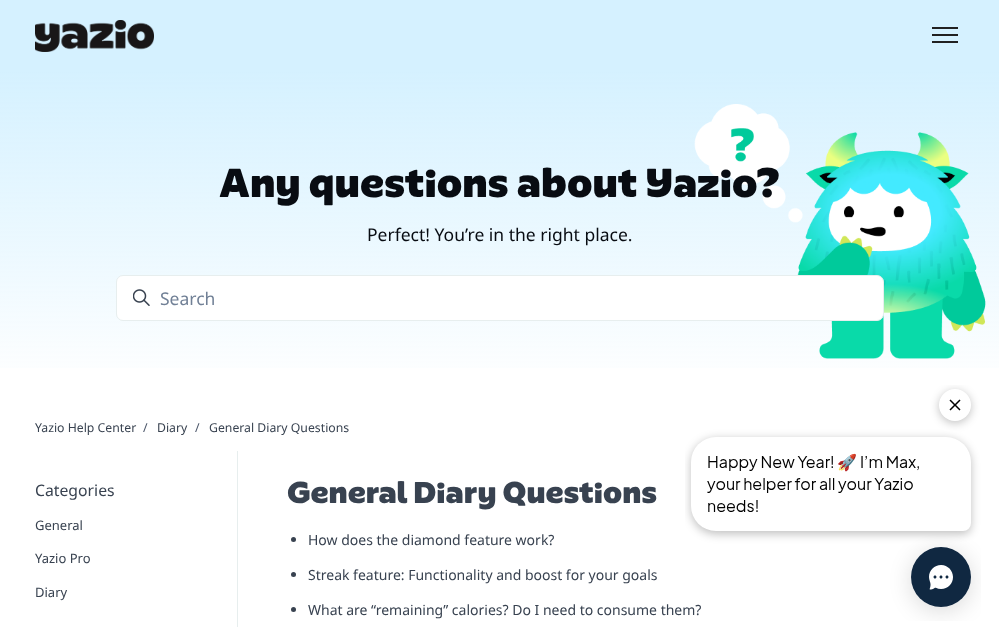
<svg xmlns="http://www.w3.org/2000/svg" width="999" height="627">
	<rect width="100%" height="100%" fill="#FFFFFF" />
	<rect x="0" y="0" width="999" height="72" fill="#D5F1FF" />
	<image x="35" y="20" width="119" height="32" href="assets/img1.png" />
	<rect x="932" y="34" width="26" height="2" fill="#212121" />
	<rect x="932" y="27" width="26" height="2" fill="#212121" />
	<rect x="932" y="41" width="26" height="2" fill="#212121" />
	<image x="0" y="72" width="999" height="296" href="assets/img2.png" />
	<text x="219" y="197" font-family="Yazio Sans" font-size="42" font-weight="700" fill="#080C12">Any questions about Yazio?</text>
	<text x="367" y="241" font-family="Noto Sans" font-size="17.5" fill="#080C12">Perfect! You’re in the right place.</text>
	<rect x="116.5" y="275.5" width="767" height="45" rx="6.5" fill="#FFFFFF" stroke="#E7EEEE" />
	<image x="133" y="289" width="17" height="17" href="assets/img3.png" />
	<text x="160" y="305" font-family="Noto Sans" font-size="17.5" fill="#718096">Search</text>
	<text x="35" y="432" font-family="Noto Sans" font-size="12.25" fill="#384250">Yazio Help Center</text>
	<text x="143" y="432" font-family="Noto Sans" font-size="12.25" fill="#4A5568">/</text>
	<text x="157" y="432" font-family="Noto Sans" font-size="12.25" fill="#384250">Diary</text>
	<text x="195" y="432" font-family="Noto Sans" font-size="12.25" fill="#4A5568">/</text>
	<text x="209" y="432" font-family="Noto Sans" font-size="12.25" fill="#384250">General Diary Questions</text>
	<rect x="237" y="451" width="1" height="176" fill="#E7EEEE" />
	<text x="35" y="496" font-family="Noto Sans" font-size="15.75" fill="#384250">Categories</text>
	<g font-family="Noto Sans" font-size="13" fill="#384250">
		<text x="35" y="530">General</text>
		<text x="35" y="563">Yazio Pro</text>
		<text x="35" y="597">Diary</text>
	</g>
	<text x="287" y="503" font-family="Yazio Sans" font-size="31.5" font-weight="700" fill="#384250">General Diary Questions</text>
	<circle cx="293.5" cy="539.5" r="2.5" fill="#384250" />
	<text x="308" y="545" font-family="Noto Sans" font-size="14" fill="#384250">How does the diamond feature work?</text>
	<circle cx="293.5" cy="574.5" r="2.5" fill="#384250" />
	<text x="308" y="580" font-family="Noto Sans" font-size="14" fill="#384250">Streak feature: Functionality and boost for your goals</text>
	<circle cx="293.5" cy="609.5" r="2.5" fill="#384250" />
	<text x="308" y="615" font-family="Noto Sans" font-size="14" fill="#384250">What are “remaining” calories? Do I need to consume them?</text>
	<image x="685" y="385" width="296" height="236" href="assets/img4.png" />
</svg>
